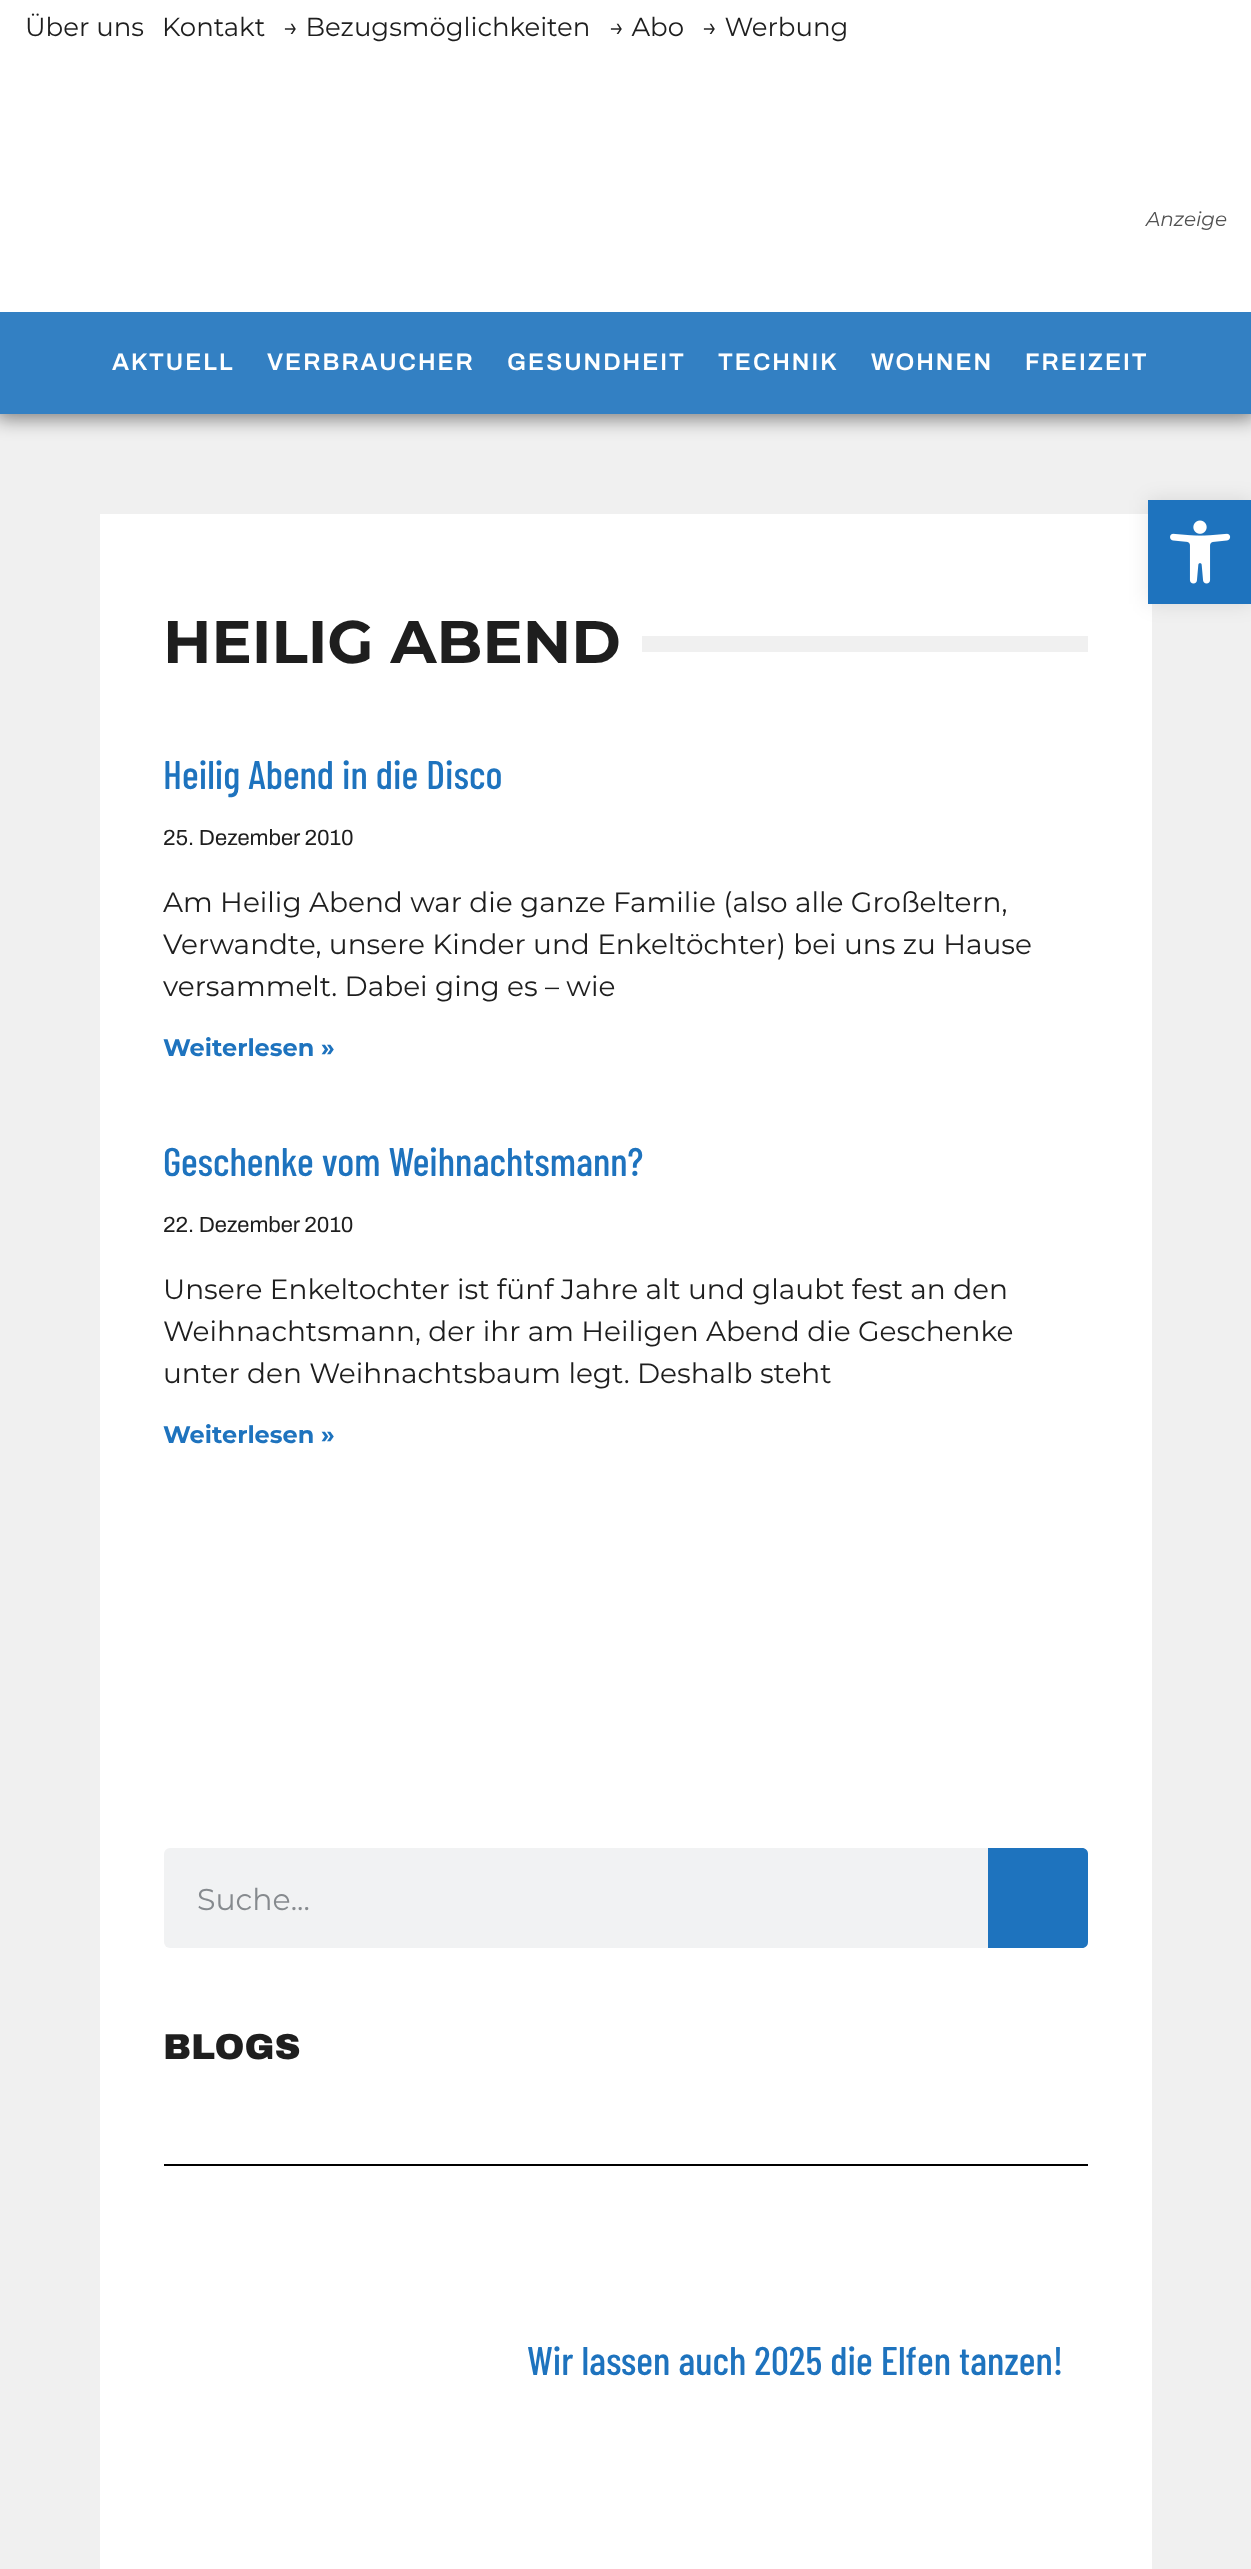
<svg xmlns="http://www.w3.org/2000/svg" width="1251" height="2569">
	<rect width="100%" height="100%" fill="#F0F0F0" />
	<rect x="0" y="0" width="1251" height="54" fill="#FFFFFF" />
	<g font-family="Montserrat" font-size="26" fill="#1E1E1E">
		<text x="25" y="36">Über uns</text>
		<text x="162" y="36">Kontakt</text>
		<text x="283" y="36">→ Bezugsmöglichkeiten</text>
		<text x="609" y="36">→ Abo</text>
		<text x="702" y="36">→ Werbung</text>
	</g>
	<rect x="-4" y="308" width="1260" height="110" fill="#000000" fill-opacity="0.5" filter="blur(10px)" />
	<rect x="0" y="54" width="1251" height="258" fill="#FFFFFF" />
	<text x="1146" y="226" font-family="Montserrat" font-size="20" font-style="italic" fill="#525252">Anzeige</text>
	<rect x="0" y="312" width="1251" height="102" fill="#3380C3" />
	<g font-family="Archivo" font-size="24" font-weight="600" letter-spacing="2" fill="#FFFFFF">
		<text x="112" y="370">AKTUELL</text>
		<text x="267" y="370">VERBRAUCHER</text>
		<text x="507" y="370">GESUNDHEIT</text>
		<text x="718" y="370">TECHNIK</text>
		<text x="871" y="370">WOHNEN</text>
		<text x="1025" y="370">FREIZEIT</text>
	</g>
	<rect x="100" y="514" width="1052" height="2055" fill="#FFFFFF" />
	<rect x="1148" y="500" width="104" height="104" fill="#000000" fill-opacity="0.1" filter="blur(10px)" />
	<rect x="1148" y="500" width="103" height="104" fill="#1E73BE" />
	<image x="1170" y="520" width="61" height="64" href="assets/img1.png" />
	<text x="163" y="663" font-family="Montserrat" font-size="60" font-weight="700" fill="#1E1E1E">HEILIG ABEND</text>
	<rect x="642" y="636" width="446" height="16" fill="#F0F0F0" />
	<text x="163" y="789" font-family="Barlow Condensed" font-size="40" font-weight="500" fill="#1E73BE">Heilig Abend in die Disco</text>
	<text x="163" y="845" font-family="Archivo" font-size="22" fill="#1E1E1E">25. Dezember 2010</text>
	<g font-family="Montserrat" font-size="28" fill="#1E1E1E">
		<text x="163" y="912">Am Heilig Abend war die ganze Familie (also alle Großeltern,</text>
		<text x="163" y="954">Verwandte, unsere Kinder und Enkeltöchter) bei uns zu Hause</text>
		<text x="163" y="996">versammelt. Dabei ging es – wie</text>
	</g>
	<text x="163" y="1056" font-family="Montserrat" font-size="24" font-weight="700" fill="#1E73BE">Weiterlesen »</text>
	<text x="163" y="1176" font-family="Barlow Condensed" font-size="40" font-weight="500" fill="#1E73BE">Geschenke vom Weihnachtsmann?</text>
	<text x="163" y="1232" font-family="Archivo" font-size="22" fill="#1E1E1E">22. Dezember 2010</text>
	<g font-family="Montserrat" font-size="28" fill="#1E1E1E">
		<text x="163" y="1299">Unsere Enkeltochter ist fünf Jahre alt und glaubt fest an den</text>
		<text x="163" y="1341">Weihnachtsmann, der ihr am Heiligen Abend die Geschenke</text>
		<text x="163" y="1383">unter den Weihnachtsbaum legt. Deshalb steht</text>
	</g>
	<text x="163" y="1443" font-family="Montserrat" font-size="24" font-weight="700" fill="#1E73BE">Weiterlesen »</text>
	<rect x="164" y="1848" width="924" height="100" rx="6" fill="#F1F2F3" />
	<text x="197" y="1910" font-family="Montserrat" font-size="30" fill="#868A8E">Suche...</text>
	<path d="M988 1848H1082C1085.5 1848 1088 1850.5 1088 1854V1942C1088 1945.5 1085.5 1948 1082 1948H988Z" fill="#1E73BE" />
	<text x="163" y="2059" font-family="Archivo Black" font-size="36" fill="#1E1E1E">BLOGS</text>
	<rect x="164" y="2164" width="924" height="2" fill="#000000" />
	<text x="527" y="2375" font-family="Barlow Condensed" font-size="40" font-weight="500" fill="#1E73BE">Wir lassen auch 2025 die Elfen tanzen!</text>
</svg>
